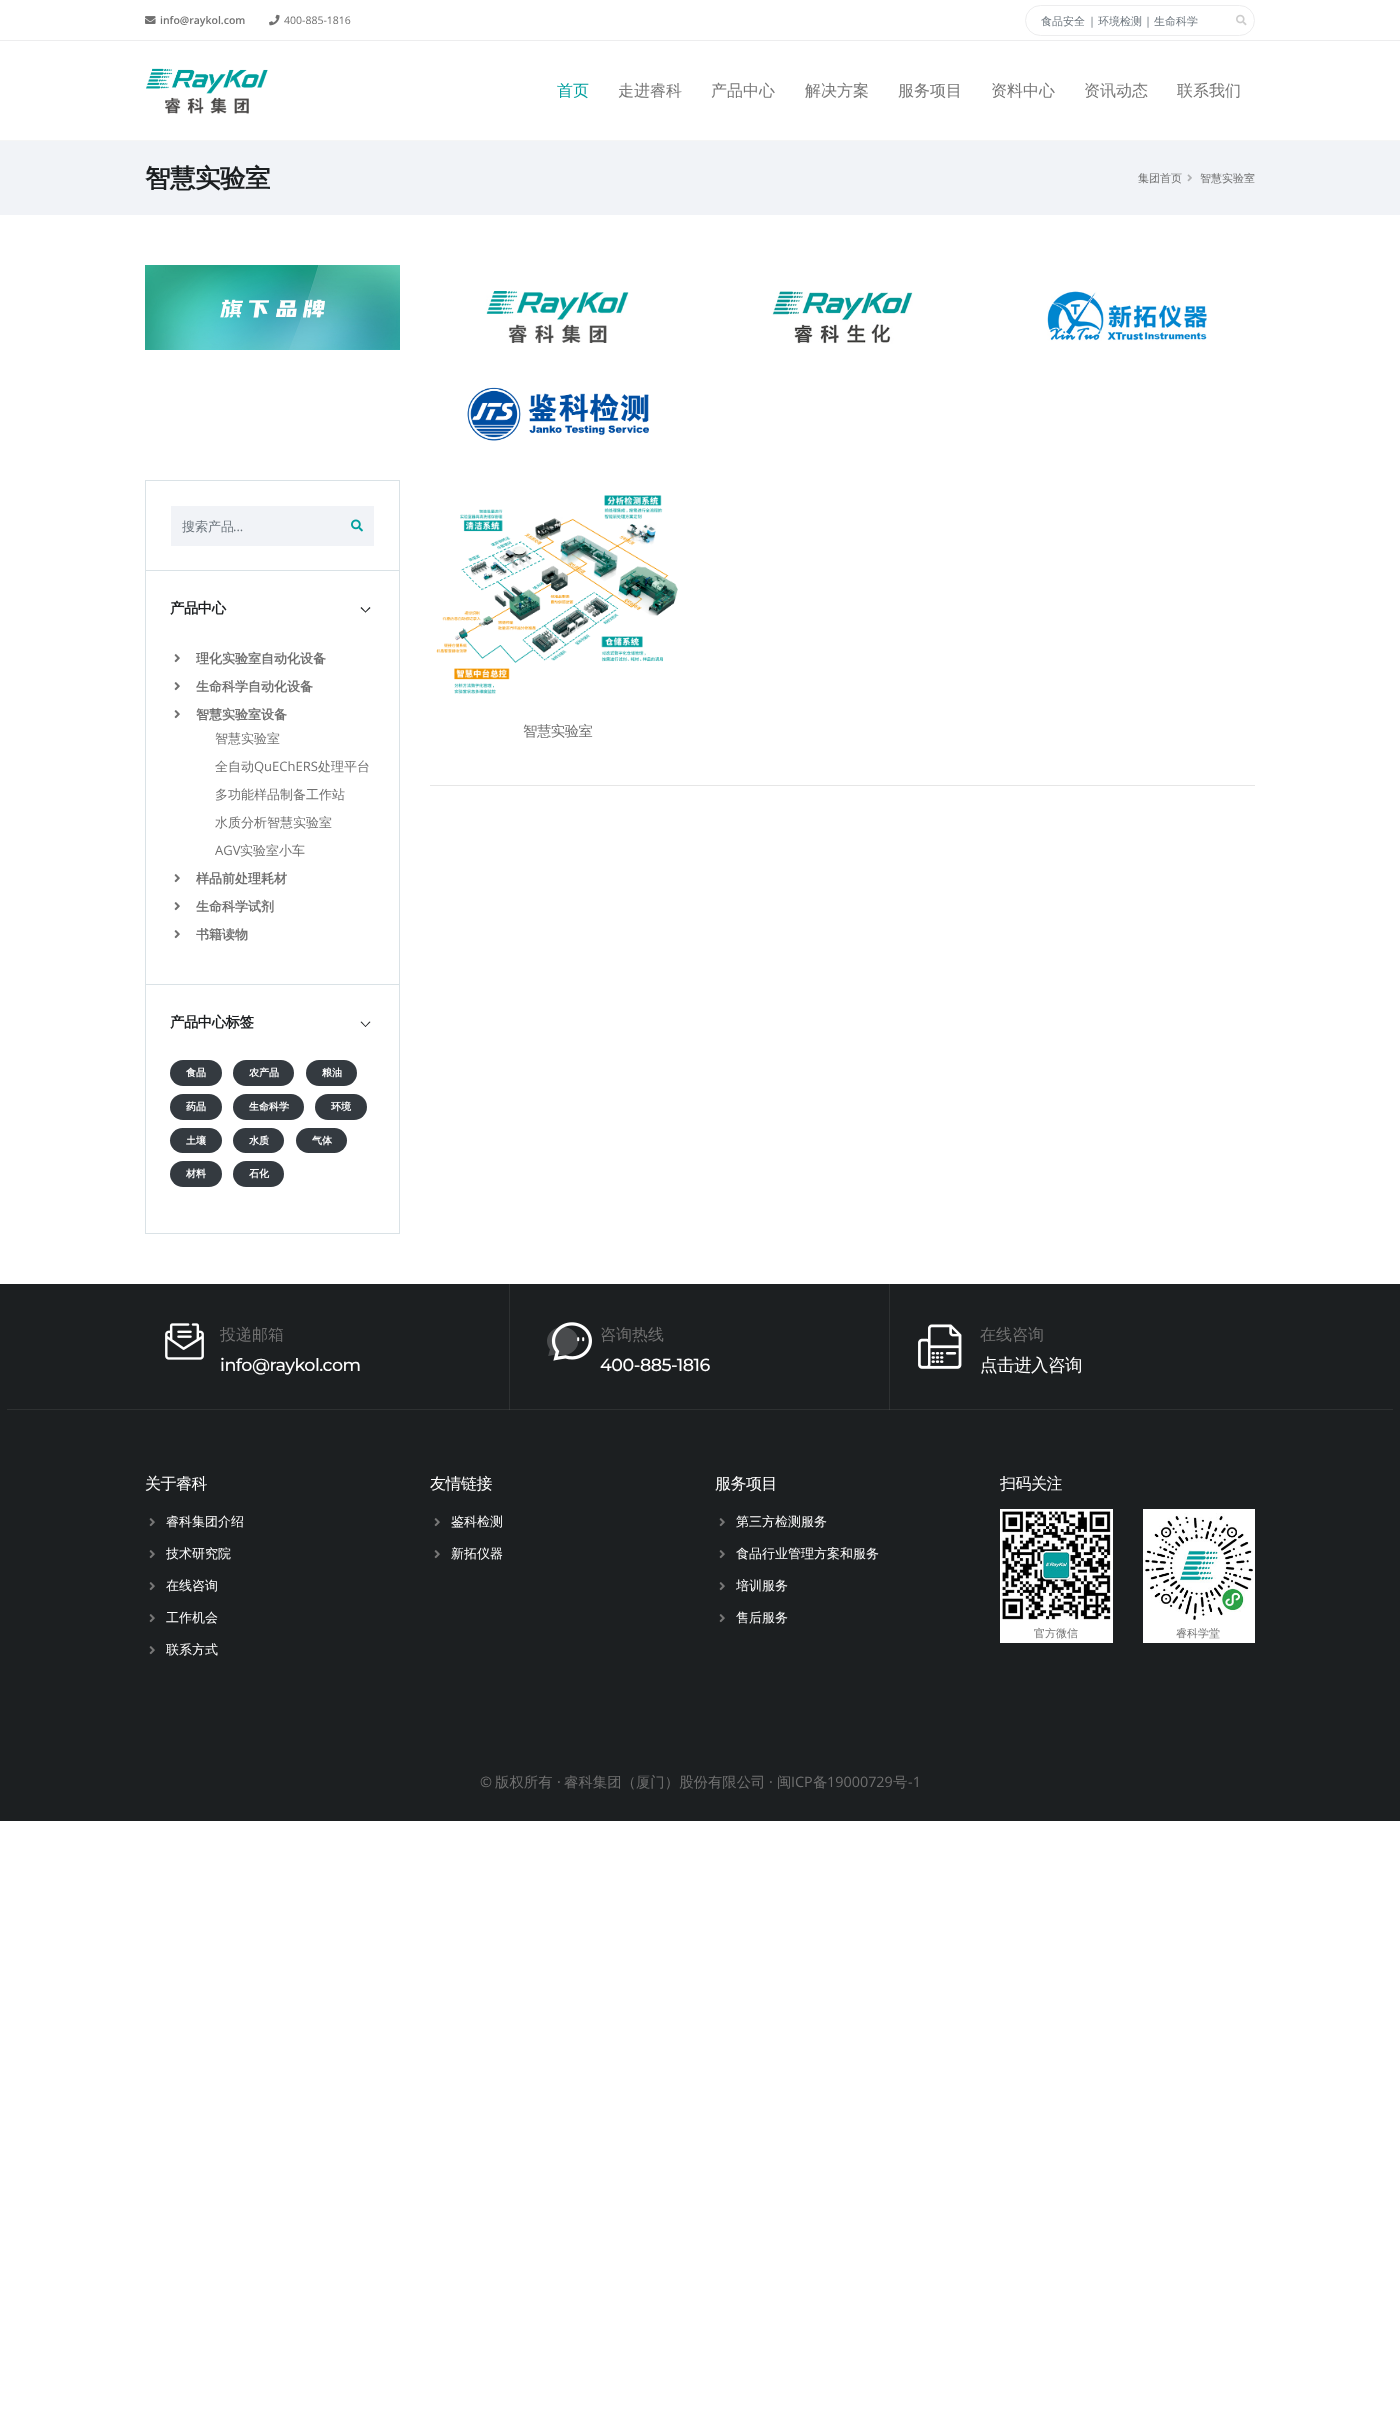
<svg xmlns="http://www.w3.org/2000/svg" width="1400" height="2415">
	<rect width="100%" height="100%" fill="#FFFFFF" />
	<rect x="0" y="40" width="1400" height="1" fill="#EDEDEE" />
	<image x="145" y="16" width="11" height="8" href="assets/img1.png" />
	<text x="160" y="24" font-family="Open Sans" font-size="10.5" font-weight="600" fill="#707070">info@raykol.com</text>
	<image x="269" y="14" width="11" height="12" href="assets/img2.png" />
	<text x="284" y="24" font-family="Open Sans" font-size="10.5" fill="#707070">400-885-1816</text>
	<rect x="1025.5" y="5.5" width="229" height="30" rx="15" fill="none" stroke="#EDEDEE" />
	<text x="1041" y="25" font-family="WenQuanYi Zen Hei" font-size="11" font-weight="500" fill="#6C757D">食品安全</text>
	<text x="1089" y="25" font-family="Open Sans" font-size="11" fill="#6C757D">|</text>
	<text x="1098" y="25" font-family="WenQuanYi Zen Hei" font-size="11" font-weight="500" fill="#6C757D">环境检测</text>
	<text x="1145" y="25" font-family="Open Sans" font-size="11" fill="#6C757D">|</text>
	<text x="1154" y="25" font-family="WenQuanYi Zen Hei" font-size="11" font-weight="500" fill="#6C757D">生命科学</text>
	<image x="1236" y="14" width="11" height="12" href="assets/img3.png" />
	<image x="146" y="68" width="122" height="46" href="assets/img4.png" />
	<text x="557" y="96" font-family="WenQuanYi Zen Hei" font-size="16" font-weight="500" fill="#009F9E">首页</text>
	<g font-family="WenQuanYi Zen Hei" font-size="16" font-weight="500" fill="#777777">
		<text x="618" y="96">走进睿科</text>
		<text x="711" y="96">产品中心</text>
		<text x="805" y="96">解决方案</text>
		<text x="898" y="96">服务项目</text>
		<text x="991" y="96">资料中心</text>
		<text x="1084" y="96">资讯动态</text>
		<text x="1177" y="96">联系我们</text>
	</g>
	<rect x="0" y="140" width="1400" height="1" fill="#F5F5F5" />
	<rect x="0" y="141" width="1400" height="74" fill="#F1F3F7" />
	<text x="145" y="187" font-family="WenQuanYi Zen Hei" font-size="25.5" font-weight="700" letter-spacing="-0.5" fill="#1C1F21">智慧实验室</text>
	<text x="1138" y="182" font-family="WenQuanYi Zen Hei" font-size="11" font-weight="500" fill="#707070">集团首页</text>
	<image x="1187" y="174" width="5" height="8" href="assets/img5.png" />
	<text x="1200" y="182" font-family="WenQuanYi Zen Hei" font-size="11" font-weight="500" fill="#707070">智慧实验室</text>
	<image x="145" y="265" width="255" height="85" href="assets/img6.png" />
	<image x="486" y="291" width="143" height="52" href="assets/img7.png" />
	<image x="772" y="291" width="141" height="53" href="assets/img8.png" />
	<image x="1047" y="291" width="160" height="50" href="assets/img9.png" />
	<image x="467" y="387" width="182" height="54" href="assets/img10.png" />
	<rect x="145.5" y="480.5" width="254" height="90" fill="none" stroke="#DAE2E6" />
	<rect x="171" y="506" width="203" height="40" fill="#F1F3F7" />
	<text x="182" y="531" font-family="WenQuanYi Zen Hei" font-size="13" font-weight="500" fill="#6C757D">搜索产品</text>
	<text x="233" y="531" font-family="Open Sans" font-size="13" fill="#6C757D">...</text>
	<image x="351" y="519" width="12" height="13" href="assets/img11.png" />
	<text x="170" y="613" font-family="WenQuanYi Zen Hei" font-size="14.4" font-weight="700" letter-spacing="-0.5" fill="#1C1F21">产品中心</text>
	<path d="M370.5 608L365.5 612.5L365 612L369.5 607Z" fill="#1C1F21" />
	<path d="M366 612L365.5 612.5L360.5 608L361.5 607Z" fill="#1C1F21" />
	<rect x="399" y="571" width="1" height="414" fill="#DAE2E6" />
	<rect x="145" y="984" width="255" height="1" fill="#DAE2E6" />
	<rect x="145" y="571" width="1" height="414" fill="#DAE2E6" />
	<image x="174" y="654" width="6" height="9" href="assets/img12.png" />
	<text x="196" y="663" font-family="WenQuanYi Zen Hei" font-size="13" font-weight="700" fill="#707070">理化实验室自动化设备</text>
	<image x="174" y="682" width="6" height="9" href="assets/img12.png" />
	<text x="196" y="691" font-family="WenQuanYi Zen Hei" font-size="13" font-weight="700" fill="#707070">生命科学自动化设备</text>
	<image x="174" y="710" width="6" height="9" href="assets/img12.png" />
	<text x="196" y="719" font-family="WenQuanYi Zen Hei" font-size="13" font-weight="700" fill="#707070">智慧实验室设备</text>
	<g font-family="WenQuanYi Zen Hei" font-size="13" font-weight="500" fill="#707070">
		<text x="215" y="743">智慧实验室</text>
		<text x="215" y="771">全自动</text>
	</g>
	<text x="254" y="771" font-family="Open Sans" font-size="13" fill="#707070">QuEChERS</text>
	<g font-family="WenQuanYi Zen Hei" font-size="13" font-weight="500" fill="#707070">
		<text x="318" y="771">处理平台</text>
		<text x="215" y="799">多功能样品制备工作站</text>
		<text x="215" y="827">水质分析智慧实验室</text>
	</g>
	<text x="215" y="855" font-family="Open Sans" font-size="13" fill="#707070">AGV</text>
	<text x="240" y="855" font-family="WenQuanYi Zen Hei" font-size="13" font-weight="500" fill="#707070">实验室小车</text>
	<image x="174" y="874" width="6" height="9" href="assets/img12.png" />
	<text x="196" y="883" font-family="WenQuanYi Zen Hei" font-size="13" font-weight="700" fill="#707070">样品前处理耗材</text>
	<image x="174" y="902" width="6" height="9" href="assets/img12.png" />
	<text x="196" y="911" font-family="WenQuanYi Zen Hei" font-size="13" font-weight="700" fill="#707070">生命科学试剂</text>
	<image x="174" y="930" width="6" height="9" href="assets/img12.png" />
	<text x="196" y="939" font-family="WenQuanYi Zen Hei" font-size="13" font-weight="700" fill="#707070">书籍读物</text>
	<text x="170" y="1027" font-family="WenQuanYi Zen Hei" font-size="14.4" font-weight="700" letter-spacing="-0.5" fill="#1C1F21">产品中心标签</text>
	<path d="M370.5 1022L365.5 1027L365 1026.5L369.5 1021.5Z" fill="#1C1F21" />
	<path d="M366 1026.5L365.5 1027L360.5 1022L361.5 1021.5Z" fill="#1C1F21" />
	<rect x="399" y="985" width="1" height="249" fill="#DAE2E6" />
	<rect x="145" y="1233" width="255" height="1" fill="#DAE2E6" />
	<rect x="145" y="985" width="1" height="249" fill="#DAE2E6" />
	<rect x="170" y="1060" width="52" height="26" rx="13" fill="#343A40" />
	<text x="186" y="1076" font-family="WenQuanYi Zen Hei" font-size="10" font-weight="700" fill="#FFFFFF">食品</text>
	<rect x="233" y="1060" width="61" height="26" rx="13" fill="#343A40" />
	<text x="249" y="1076" font-family="WenQuanYi Zen Hei" font-size="10" font-weight="700" fill="#FFFFFF">农产品</text>
	<rect x="306" y="1060" width="51" height="26" rx="13" fill="#343A40" />
	<text x="322" y="1076" font-family="WenQuanYi Zen Hei" font-size="10" font-weight="700" fill="#FFFFFF">粮油</text>
	<rect x="170" y="1094" width="52" height="26" rx="13" fill="#343A40" />
	<text x="186" y="1110" font-family="WenQuanYi Zen Hei" font-size="10" font-weight="700" fill="#FFFFFF">药品</text>
	<rect x="233" y="1094" width="71" height="26" rx="13" fill="#343A40" />
	<text x="249" y="1110" font-family="WenQuanYi Zen Hei" font-size="10" font-weight="700" fill="#FFFFFF">生命科学</text>
	<rect x="315" y="1094" width="52" height="26" rx="13" fill="#343A40" />
	<text x="331" y="1110" font-family="WenQuanYi Zen Hei" font-size="10" font-weight="700" fill="#FFFFFF">环境</text>
	<rect x="170" y="1128" width="52" height="25" rx="12.5" fill="#343A40" />
	<text x="186" y="1144" font-family="WenQuanYi Zen Hei" font-size="10" font-weight="700" fill="#FFFFFF">土壤</text>
	<rect x="233" y="1128" width="51" height="25" rx="12.5" fill="#343A40" />
	<text x="249" y="1144" font-family="WenQuanYi Zen Hei" font-size="10" font-weight="700" fill="#FFFFFF">水质</text>
	<rect x="296" y="1128" width="51" height="25" rx="12.5" fill="#343A40" />
	<text x="312" y="1144" font-family="WenQuanYi Zen Hei" font-size="10" font-weight="700" fill="#FFFFFF">气体</text>
	<rect x="170" y="1161" width="52" height="26" rx="13" fill="#343A40" />
	<text x="186" y="1177" font-family="WenQuanYi Zen Hei" font-size="10" font-weight="700" fill="#FFFFFF">材料</text>
	<rect x="233" y="1161" width="51" height="26" rx="13" fill="#343A40" />
	<text x="249" y="1177" font-family="WenQuanYi Zen Hei" font-size="10" font-weight="700" fill="#FFFFFF">石化</text>
	<image x="436" y="495" width="242" height="199" href="assets/img13.png" />
	<text x="523" y="736" font-family="WenQuanYi Zen Hei" font-size="14.4" font-weight="500" letter-spacing="-0.5" fill="#707070">智慧实验室</text>
	<rect x="430" y="785" width="825" height="1" fill="#E6E6E6" />
	<rect x="0" y="1284" width="1400" height="537" fill="#1C1F21" />
	<rect x="889" y="1284" width="1" height="126" fill="#2E3132" />
	<rect x="509" y="1284" width="1" height="126" fill="#2E3132" />
	<image x="165" y="1323" width="39" height="37" href="assets/img14.png" />
	<text x="220" y="1340" font-family="WenQuanYi Zen Hei" font-size="16" font-weight="500" fill="#707070">投递邮箱</text>
	<text x="220" y="1371" font-family="Montserrat" font-size="17.5" font-weight="500" letter-spacing="-0.5" fill="#FFFFFF">info@raykol.com</text>
	<image x="547" y="1322" width="45" height="39" href="assets/img15.png" />
	<text x="600" y="1340" font-family="WenQuanYi Zen Hei" font-size="16" font-weight="500" fill="#707070">咨询热线</text>
	<text x="600" y="1371" font-family="Montserrat" font-size="17.5" font-weight="500" letter-spacing="-0.5" fill="#FFFFFF">400-885-1816</text>
	<image x="918" y="1324" width="44" height="45" href="assets/img16.png" />
	<text x="980" y="1340" font-family="WenQuanYi Zen Hei" font-size="16" font-weight="500" fill="#707070">在线咨询</text>
	<text x="980" y="1371" font-family="WenQuanYi Zen Hei" font-size="17.5" font-weight="500" letter-spacing="-0.5" fill="#FFFFFF">点击进入咨询</text>
	<rect x="7" y="1409" width="1386" height="1" fill="#2E3132" />
	<rect x="889" y="1409" width="1" height="1" fill="#3D3F40" />
	<rect x="509" y="1409" width="1" height="1" fill="#3D3F40" />
	<text x="145" y="1489" font-family="WenQuanYi Zen Hei" font-size="16" font-weight="500" letter-spacing="-0.5" fill="#FFFFFF">关于睿科</text>
	<image x="149" y="1518" width="6" height="9" href="assets/img17.png" />
	<text x="166" y="1526" font-family="WenQuanYi Zen Hei" font-size="13" font-weight="500" fill="#FFFFFF">睿科集团介绍</text>
	<image x="149" y="1550" width="6" height="9" href="assets/img17.png" />
	<text x="166" y="1558" font-family="WenQuanYi Zen Hei" font-size="13" font-weight="500" fill="#FFFFFF">技术研究院</text>
	<image x="149" y="1582" width="6" height="9" href="assets/img17.png" />
	<text x="166" y="1590" font-family="WenQuanYi Zen Hei" font-size="13" font-weight="500" fill="#FFFFFF">在线咨询</text>
	<image x="149" y="1614" width="6" height="9" href="assets/img17.png" />
	<text x="166" y="1622" font-family="WenQuanYi Zen Hei" font-size="13" font-weight="500" fill="#FFFFFF">工作机会</text>
	<image x="149" y="1646" width="6" height="9" href="assets/img17.png" />
	<text x="166" y="1654" font-family="WenQuanYi Zen Hei" font-size="13" font-weight="500" fill="#FFFFFF">联系方式</text>
	<text x="430" y="1489" font-family="WenQuanYi Zen Hei" font-size="16" font-weight="500" letter-spacing="-0.5" fill="#FFFFFF">友情链接</text>
	<image x="434" y="1518" width="6" height="9" href="assets/img17.png" />
	<text x="451" y="1526" font-family="WenQuanYi Zen Hei" font-size="13" font-weight="500" fill="#FFFFFF">鉴科检测</text>
	<image x="434" y="1550" width="6" height="9" href="assets/img17.png" />
	<text x="451" y="1558" font-family="WenQuanYi Zen Hei" font-size="13" font-weight="500" fill="#FFFFFF">新拓仪器</text>
	<text x="715" y="1489" font-family="WenQuanYi Zen Hei" font-size="16" font-weight="500" letter-spacing="-0.5" fill="#FFFFFF">服务项目</text>
	<image x="719" y="1518" width="6" height="9" href="assets/img17.png" />
	<text x="736" y="1526" font-family="WenQuanYi Zen Hei" font-size="13" font-weight="500" fill="#FFFFFF">第三方检测服务</text>
	<image x="719" y="1550" width="6" height="9" href="assets/img17.png" />
	<text x="736" y="1558" font-family="WenQuanYi Zen Hei" font-size="13" font-weight="500" fill="#FFFFFF">食品行业管理方案和服务</text>
	<image x="719" y="1582" width="6" height="9" href="assets/img17.png" />
	<text x="736" y="1590" font-family="WenQuanYi Zen Hei" font-size="13" font-weight="500" fill="#FFFFFF">培训服务</text>
	<image x="719" y="1614" width="6" height="9" href="assets/img17.png" />
	<text x="736" y="1622" font-family="WenQuanYi Zen Hei" font-size="13" font-weight="500" fill="#FFFFFF">售后服务</text>
	<text x="1000" y="1489" font-family="WenQuanYi Zen Hei" font-size="16" font-weight="500" letter-spacing="-0.5" fill="#FFFFFF">扫码关注</text>
	<rect x="1000" y="1509" width="113" height="134" fill="#FFFFFF" />
	<image x="1001" y="1510" width="110" height="110" href="assets/img18.png" />
	<text x="1034" y="1637" font-family="WenQuanYi Zen Hei" font-size="11" font-weight="500" fill="#707070">官方微信</text>
	<rect x="1143" y="1509" width="112" height="134" fill="#FFFFFF" />
	<image x="1144" y="1513" width="109" height="107" href="assets/img19.png" />
	<text x="1176" y="1637" font-family="WenQuanYi Zen Hei" font-size="11" font-weight="500" fill="#707070">睿科学堂</text>
	<text x="480" y="1787" font-family="Open Sans" font-size="14.4" fill="#707070">©</text>
	<text x="495" y="1787" font-family="WenQuanYi Zen Hei" font-size="14.4" font-weight="500" fill="#707070">版权所有</text>
	<text x="557" y="1787" font-family="Open Sans" font-size="14.4" fill="#707070">·</text>
	<text x="564" y="1787" font-family="WenQuanYi Zen Hei" font-size="14.4" font-weight="500" fill="#707070">睿科集团（厦门）股份有限公司</text>
	<text x="769" y="1787" font-family="Open Sans" font-size="14.4" fill="#707070">·</text>
	<text x="777" y="1787" font-family="WenQuanYi Zen Hei" font-size="14.4" font-weight="500" fill="#707070">闽</text>
	<text x="791" y="1787" font-family="Open Sans" font-size="14.4" fill="#707070">ICP</text>
	<text x="813" y="1787" font-family="WenQuanYi Zen Hei" font-size="14.4" font-weight="500" fill="#707070">备</text>
	<text x="827" y="1787" font-family="Open Sans" font-size="14.4" fill="#707070">19000729</text>
	<text x="893" y="1787" font-family="WenQuanYi Zen Hei" font-size="14.4" font-weight="500" fill="#707070">号</text>
	<text x="908" y="1787" font-family="Open Sans" font-size="14.4" fill="#707070">-1</text>
</svg>
